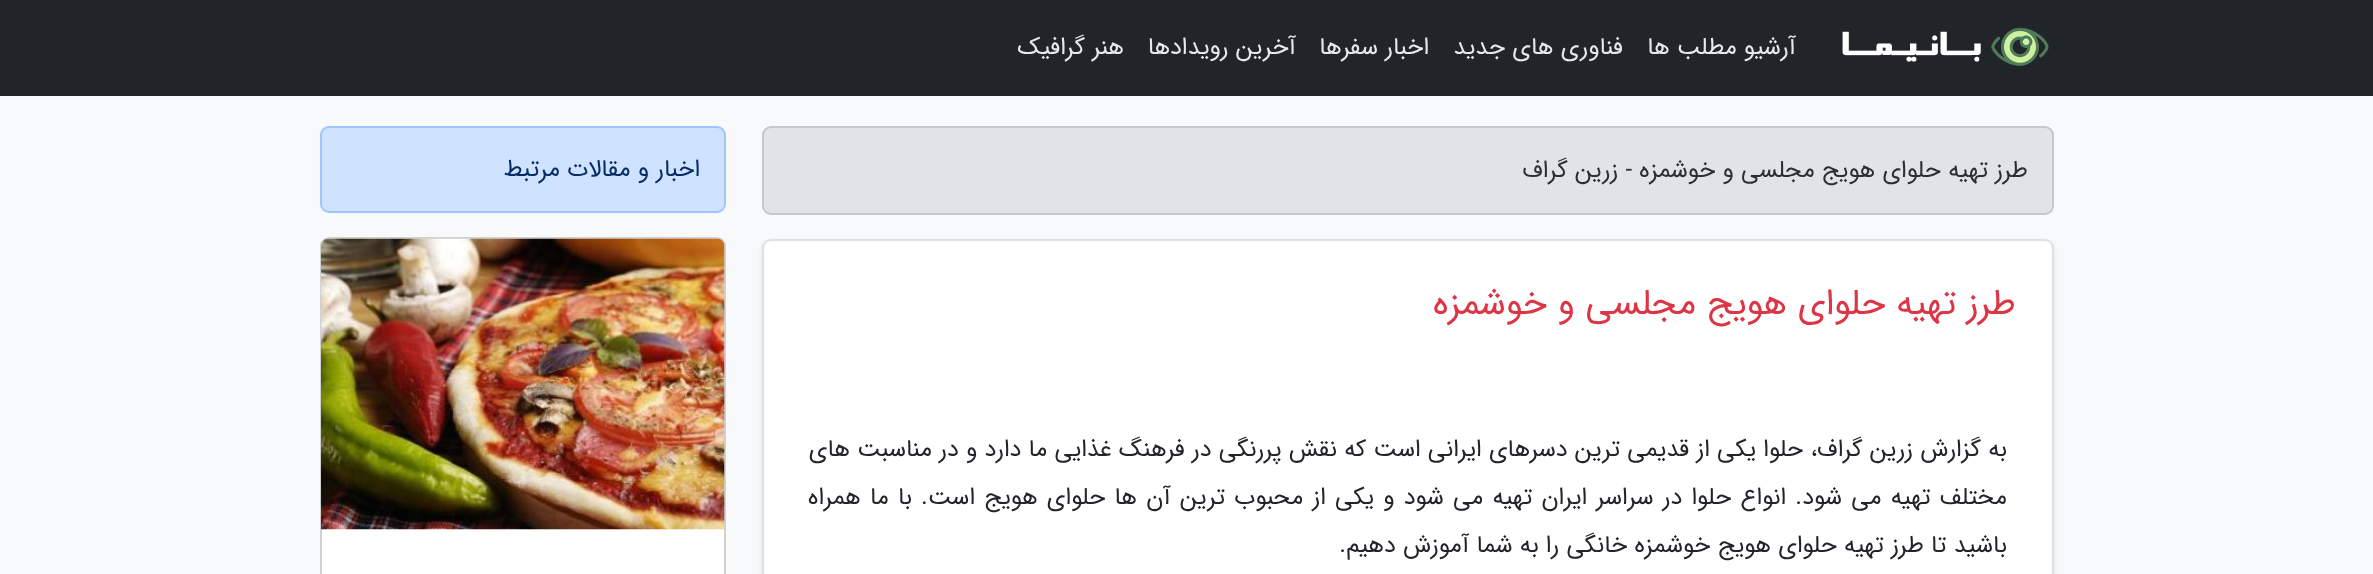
<svg xmlns="http://www.w3.org/2000/svg" width="2373" height="574">
	<rect width="100%" height="100%" fill="#F8F9FA" />
	<rect x="0" y="0" width="2373" height="96" fill="#212529" />
	<image x="1842" y="27" width="207" height="39" href="assets/img1.png" />
	<g font-family="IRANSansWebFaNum" font-size="24" direction="rtl" fill="#E9E9EA">
		<text x="1796" y="54">آرشیو مطلب ها</text>
		<text x="1623" y="54">فناوری های جدید</text>
		<text x="1429" y="54">اخبار سفرها</text>
		<text x="1296" y="54">آخرین رویدادها</text>
		<text x="1124" y="54">هنر گرافیک</text>
	</g>
	<rect x="763" y="127" width="1290" height="87" rx="8" fill="#E2E3E5" stroke="#C4C8CB" stroke-width="2" />
	<text x="2028" y="177" font-family="IRANSansWebFaNum" font-size="24" direction="rtl" fill="#2B2F32">طرز تهیه حلوای هویج مجلسی و خوشمزه - زرین گراف</text>
	<rect x="762" y="242" width="1292" height="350" rx="9" fill="#000000" fill-opacity="0.07" filter="blur(3px)" />
	<rect x="763" y="240" width="1290" height="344" rx="8" fill="#FFFFFF" stroke="#DEE2E6" stroke-width="2" />
	<text x="2016" y="314" font-family="IRANSansWebFaNum" font-size="36" direction="rtl" fill="#DC3545">طرز تهیه حلوای هویج مجلسی و خوشمزه</text>
	<g font-family="IRANSansWebFaNum" font-size="24" direction="rtl" fill="#212529">
		<text x="2007" y="456">به گزارش زرین گراف، حلوا یکی از قدیمی ترین دسرهای ایرانی است که نقش پررنگی در فرهنگ غذایی ما دارد و در مناسبت های</text>
		<text x="2007" y="504" word-spacing="2">مختلف تهیه می شود. انواع حلوا در سراسر ایران تهیه می شود و یکی از محبوب ترین آن ها حلوای هویج است. با ما همراه</text>
		<text x="2007" y="552">باشید تا طرز تهیه حلوای هویج خوشمزه خانگی را به شما آموزش دهیم.</text>
	</g>
	<rect x="321" y="127" width="404" height="85" rx="8" fill="#CFE2FF" stroke="#9EC5FE" stroke-width="2" />
	<text x="700" y="176" font-family="IRANSansWebFaNum" font-size="24" direction="rtl" fill="#052C65">اخبار و مقالات مرتبط</text>
	<rect x="320" y="237" width="406" height="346" rx="9" fill="#FFFFFF" />
	<rect x="321" y="238" width="404" height="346" rx="8" fill="none" stroke="#000000" stroke-opacity="0.18" stroke-width="2" />
	<image x="321" y="238" width="404" height="292" href="assets/img2.png" />
</svg>
